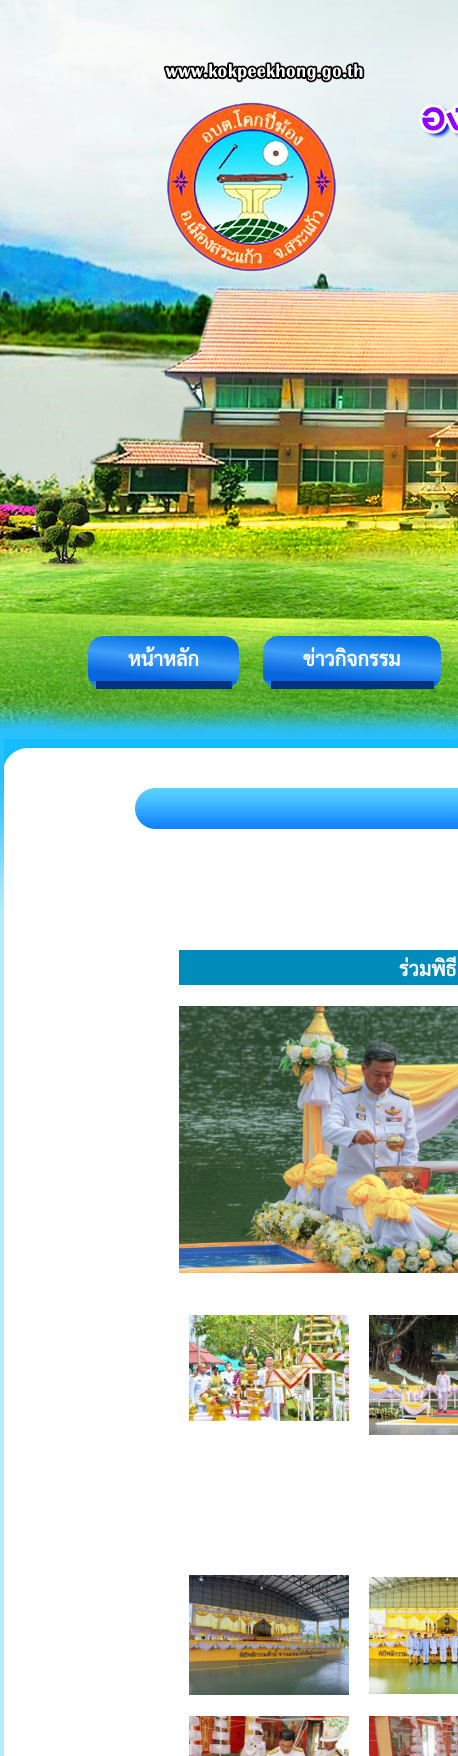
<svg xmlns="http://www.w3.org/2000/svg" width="458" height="1756">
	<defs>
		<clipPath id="clip1"><rect x="88" y="636" width="151" height="53" rx="15" /></clipPath>
		<linearGradient id="g1" gradientUnits="userSpaceOnUse" x1="160" y1="689" x2="167" y2="628"><stop offset="0.16" stop-color="#0866DF" /><stop offset="0.5" stop-color="#3EA0F9" /><stop offset="0.85" stop-color="#026DE3" /></linearGradient>
		<linearGradient id="g2" gradientUnits="userSpaceOnUse" x1="160" y1="734" x2="167" y2="673"><stop offset="0.16" stop-color="#0866DF" /><stop offset="0.5" stop-color="#3EA0F9" /><stop offset="0.85" stop-color="#026DE3" /></linearGradient>
		<clipPath id="clip2"><rect x="263" y="636" width="178" height="53" rx="15" /></clipPath>
		<linearGradient id="g3" gradientUnits="userSpaceOnUse" x1="349" y1="690" x2="355" y2="627"><stop offset="0.16" stop-color="#0866DF" /><stop offset="0.5" stop-color="#3EA0F9" /><stop offset="0.85" stop-color="#026DE3" /></linearGradient>
		<linearGradient id="g4" gradientUnits="userSpaceOnUse" x1="349" y1="735" x2="355" y2="672"><stop offset="0.16" stop-color="#0866DF" /><stop offset="0.5" stop-color="#3EA0F9" /><stop offset="0.85" stop-color="#026DE3" /></linearGradient>
	</defs>
	<rect width="100%" height="100%" fill="#B5ECFF" />
	<image x="0" y="0" width="4" height="739" href="assets/img1.png" />
	<image x="4" y="0" width="454" height="739" href="assets/img2.png" />
	<image x="166" y="102" width="171" height="171" href="assets/img3.png" />
	<image x="419" y="104" width="39" height="35" href="assets/img4.png" />
	<g clip-path="url(#clip1)">
		<path d="M103 636H224C232.5 636 239 642.5 239 651V681H88V651C88 642.5 94.5 636 103 636Z" fill="url(#g1)" />
		<rect x="88" y="681" width="151" height="7" fill="url(#g2)" />
	</g>
	<rect x="96" y="681" width="136" height="8" fill="#003380" />
	<text x="128" y="666" font-family="Sarabun" font-size="20" font-weight="700" fill="#FFFFFF">หน้าหลัก</text>
	<g clip-path="url(#clip2)">
		<path d="M278 636H426C434.5 636 441 642.5 441 651V681H263V651C263 642.5 269.5 636 278 636Z" fill="url(#g3)" />
		<rect x="263" y="681" width="178" height="7" fill="url(#g4)" />
	</g>
	<rect x="271" y="681" width="163" height="8" fill="#003380" />
	<text x="303" y="666" font-family="Sarabun" font-size="20" font-weight="700" fill="#FFFFFF">ข่าวกิจกรรม</text>
	<image x="0" y="739" width="4" height="169" href="assets/img5.png" />
	<image x="4" y="739" width="454" height="47" href="assets/img6.png" />
	<rect x="4" y="786" width="454" height="970" fill="#FFFFFF" />
	<image x="135" y="788" width="323" height="41" href="assets/img7.png" />
	<rect x="179" y="950" width="279" height="35" fill="#008CBA" />
	<text x="399" y="976" font-family="Sarabun" font-size="20" font-weight="700" fill="#FFFFFF">ร่วมพิธี</text>
	<image x="179" y="1006" width="279" height="267" href="assets/img8.png" />
	<image x="189" y="1315" width="160" height="106" href="assets/img9.png" />
	<image x="369" y="1315" width="89" height="120" href="assets/img10.png" />
	<image x="189" y="1575" width="160" height="120" href="assets/img11.png" />
	<image x="369" y="1577" width="89" height="117" href="assets/img12.png" />
	<image x="189" y="1716" width="160" height="40" href="assets/img13.png" />
	<image x="369" y="1716" width="89" height="40" href="assets/img14.png" />
</svg>
